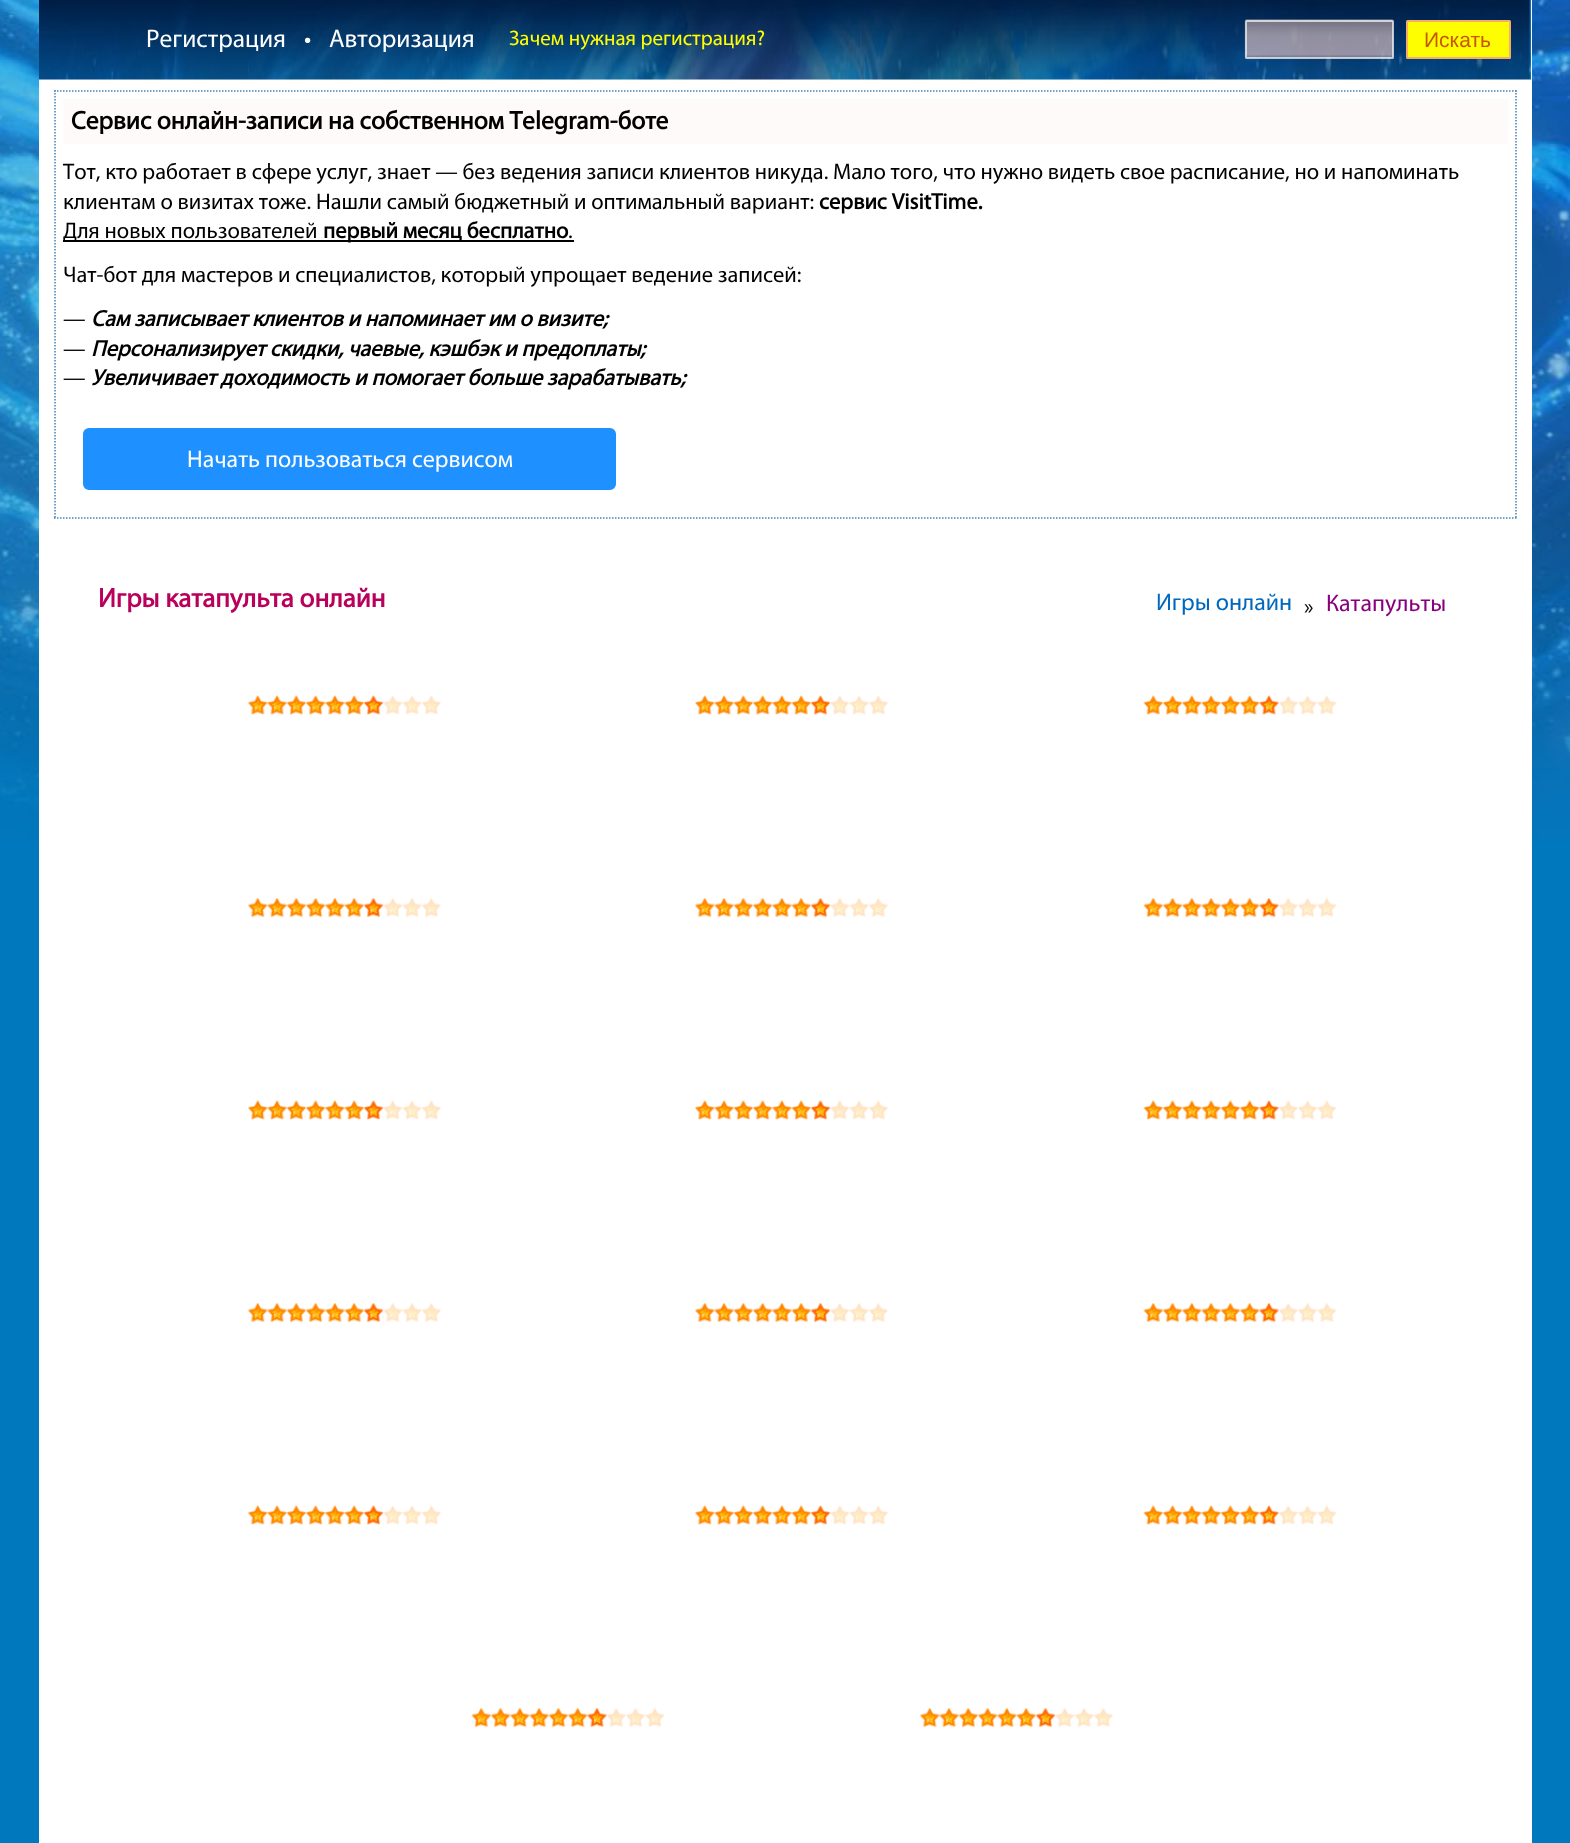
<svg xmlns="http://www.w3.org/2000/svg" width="1570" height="1843">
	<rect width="100%" height="100%" fill="#0078BD" />
	<image x="0" y="0" width="1570" height="840" href="assets/img3.png" />
	<rect x="39" y="0" width="1493" height="1843" fill="#FFFFFF" />
	<image x="39" y="0" width="1492" height="80" href="assets/img1.png" />
	<g font-family="Myriad" font-size="25.5" fill="#FFFFFF">
		<text x="146" y="47">Регистрация</text>
		<text x="304" y="47">•</text>
		<text x="329" y="47">Авторизация</text>
	</g>
	<text x="509" y="45" font-family="Myriad" font-size="21" fill="#FFFE00">Зачем нужная регистрация?</text>
	<image x="1244" y="19" width="150" height="40" href="assets/img2.png" />
	<rect x="1246" y="21" width="147" height="37" rx="0.5" fill="none" stroke="#FFFFFF" stroke-opacity="0.65" stroke-width="2" />
	<rect x="1407" y="21" width="103" height="37" rx="0.5" fill="#FFFE00" stroke="#F6AD69" stroke-width="2" />
	<text x="1424" y="47" font-family="Liberation Sans" font-size="21" fill="#C65700">Искать</text>
	<path d="M54 91H1516.5" fill="none" stroke="#4682B4" stroke-width="1.5" stroke-dasharray="1.5 1.5" />
	<path d="M1516 90V519" fill="none" stroke="#4682B4" stroke-width="1.5" stroke-dasharray="1.5 1.5" />
	<path d="M54 518H1516.5" fill="none" stroke="#4682B4" stroke-width="1.5" stroke-dasharray="1.5 1.5" />
	<path d="M55 90V519" fill="none" stroke="#4682B4" stroke-width="1.5" stroke-dasharray="1.5 1.5" />
	<rect x="63" y="99" width="1445" height="45" fill="#FFFAFA" />
	<text x="71" y="129" font-family="Myriad" font-size="25.5" font-weight="700" fill="#000000">Сервис онлайн-записи на собственном Telegram-боте</text>
	<g font-family="Myriad" font-size="22.5" fill="#000000">
		<text x="63" y="179">Тот, кто работает в сфере услуг, знает — без ведения записи клиентов никуда. Мало того, что нужно видеть свое расписание, но и напоминать</text>
		<text x="63" y="209">клиентам о визитах тоже. Нашли самый бюджетный и оптимальный вариант:</text>
	</g>
	<text x="819" y="209" font-family="Myriad" font-size="22.5" font-weight="700" fill="#000000">сервис VisitTime.</text>
	<rect x="63" y="240" width="511" height="2" fill="#000000" />
	<text x="63" y="238" font-family="Myriad" font-size="22.5" fill="#000000">Для новых пользователей</text>
	<text x="323" y="238" font-family="Myriad" font-size="22.5" font-weight="700" fill="#000000">первый месяц бесплатно</text>
	<g font-family="Myriad" font-size="22.5" fill="#000000">
		<text x="568" y="238">.</text>
		<text x="63" y="282">Чат-бот для мастеров и специалистов, который упрощает ведение записей:</text>
		<text x="63" y="326">—</text>
	</g>
	<text x="91" y="326" font-family="Myriad" font-size="22.5" font-weight="700" font-style="italic" fill="#000000">Сам записывает клиентов и напоминает им о визите;</text>
	<text x="63" y="356" font-family="Myriad" font-size="22.5" fill="#000000">—</text>
	<text x="91" y="356" font-family="Myriad" font-size="22.5" font-weight="700" font-style="italic" fill="#000000">Персонализирует скидки, чаевые, кэшбэк и предоплаты;</text>
	<text x="63" y="385" font-family="Myriad" font-size="22.5" fill="#000000">—</text>
	<text x="91" y="385" font-family="Myriad" font-size="22.5" font-weight="700" font-style="italic" fill="#000000">Увеличивает доходимость и помогает больше зарабатывать;</text>
	<rect x="82" y="427" width="535" height="64" rx="7" fill="#1E90FF" stroke="#FFFFFF" stroke-width="2" />
	<text x="187" y="467" font-family="Myriad" font-size="24" fill="#FFFFFF">Начать пользоваться сервисом</text>
	<text x="98" y="607" font-family="Myriad" font-size="27" font-weight="700" fill="#B9005B">Игры катапульта онлайн</text>
	<text x="1156" y="610" font-family="Myriad" font-size="24" fill="#0068BD">Игры онлайн</text>
	<text x="1304" y="614" font-family="Myriad" font-size="22.5" fill="#000000">»</text>
	<text x="1326" y="611" font-family="Myriad" font-size="24" fill="#89007E">Катапульты</text>
	<image x="248" y="695" width="193" height="20" href="assets/img4.png" />
	<image x="695" y="695" width="193" height="20" href="assets/img5.png" />
	<image x="1143" y="695" width="194" height="20" href="assets/img6.png" />
	<image x="248" y="898" width="193" height="20" href="assets/img7.png" />
	<image x="695" y="898" width="193" height="20" href="assets/img8.png" />
	<image x="1143" y="898" width="194" height="20" href="assets/img9.png" />
	<image x="248" y="1100" width="193" height="20" href="assets/img4.png" />
	<image x="695" y="1100" width="193" height="20" href="assets/img5.png" />
	<image x="1143" y="1100" width="194" height="20" href="assets/img6.png" />
	<image x="248" y="1303" width="193" height="20" href="assets/img7.png" />
	<image x="695" y="1303" width="193" height="20" href="assets/img8.png" />
	<image x="1143" y="1303" width="194" height="20" href="assets/img9.png" />
	<image x="248" y="1505" width="193" height="20" href="assets/img4.png" />
	<image x="695" y="1505" width="193" height="20" href="assets/img5.png" />
	<image x="1143" y="1505" width="194" height="20" href="assets/img6.png" />
	<image x="471" y="1708" width="194" height="20" href="assets/img10.png" />
	<image x="920" y="1708" width="193" height="20" href="assets/img11.png" />
</svg>
